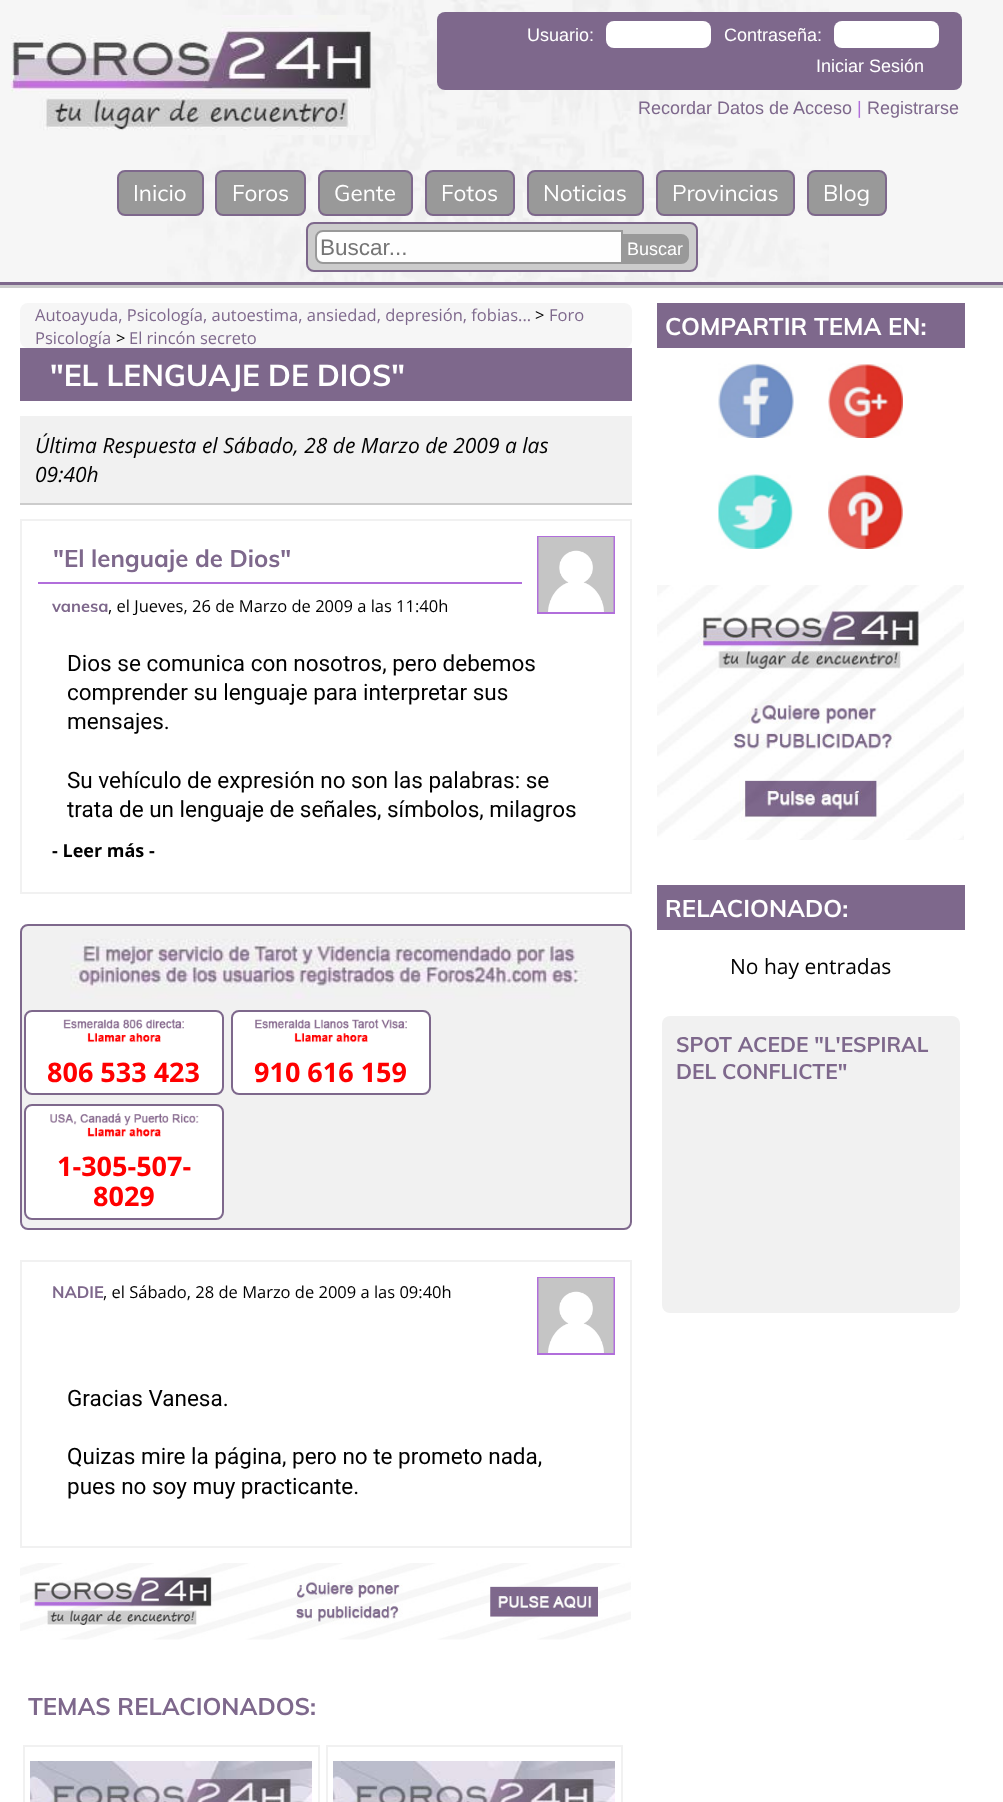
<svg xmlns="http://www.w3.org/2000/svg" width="1003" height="1802">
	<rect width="100%" height="100%" fill="#FFFFFF" />
	<rect x="0" y="0" width="1003" height="282" fill="#F6F6F6" />
	<image x="167" y="0" width="662" height="282" href="assets/img1.png" />
	<rect x="0" y="285" width="1003" height="3" fill="#CCCCCC" />
	<image x="10" y="15" width="361" height="120" href="assets/img2.png" />
	<rect x="437" y="12" width="525" height="78" rx="8" fill="#7E688C" />
	<text x="527" y="41" font-family="Liberation Sans" font-size="18" fill="#FFFFFF">Usuario:</text>
	<rect x="606" y="21" width="105" height="27" rx="8" fill="#FFFFFF" />
	<text x="724" y="41" font-family="Liberation Sans" font-size="18" fill="#FFFFFF">Contraseña:</text>
	<rect x="834" y="21" width="105" height="27" rx="8" fill="#FFFFFF" />
	<text x="816" y="72" font-family="Liberation Sans" font-size="18" fill="#FFFFFF">Iniciar Sesión</text>
	<text x="638" y="114" font-family="Liberation Sans" font-size="18" fill="#7E688C">Recordar Datos de Acceso</text>
	<text x="857" y="114" font-family="Liberation Sans" font-size="18" fill="#B16EDB">|</text>
	<text x="867" y="114" font-family="Liberation Sans" font-size="18" fill="#7E688C">Registrarse</text>
	<rect x="0" y="282" width="1003" height="3" fill="#7E688C" />
	<rect x="118" y="171" width="85" height="44" rx="7" fill="#999999" stroke="#7E688C" stroke-width="2" />
	<text x="133" y="201" font-family="Muli" font-size="22.5" fill="#FFFFFF">Inicio</text>
	<rect x="216" y="171" width="89" height="44" rx="7" fill="#999999" stroke="#7E688C" stroke-width="2" />
	<text x="232" y="201" font-family="Muli" font-size="22.5" fill="#FFFFFF">Foros</text>
	<rect x="319" y="171" width="93" height="44" rx="7" fill="#999999" stroke="#7E688C" stroke-width="2" />
	<text x="334" y="201" font-family="Muli" font-size="22.5" fill="#FFFFFF">Gente</text>
	<rect x="426" y="171" width="88" height="44" rx="7" fill="#999999" stroke="#7E688C" stroke-width="2" />
	<text x="441" y="201" font-family="Muli" font-size="22.5" fill="#FFFFFF">Fotos</text>
	<rect x="528" y="171" width="115" height="44" rx="7" fill="#999999" stroke="#7E688C" stroke-width="2" />
	<text x="543" y="201" font-family="Muli" font-size="22.5" fill="#FFFFFF">Noticias</text>
	<rect x="657" y="171" width="137" height="44" rx="7" fill="#999999" stroke="#7E688C" stroke-width="2" />
	<text x="672" y="201" font-family="Muli" font-size="22.5" fill="#FFFFFF">Provincias</text>
	<rect x="808" y="171" width="78" height="44" rx="7" fill="#999999" stroke="#7E688C" stroke-width="2" />
	<text x="823" y="201" font-family="Muli" font-size="22.5" fill="#FFFFFF">Blog</text>
	<rect x="307" y="223" width="390" height="48" rx="7" fill="#CCCCCC" stroke="#7E688C" stroke-width="2" />
	<path d="M323 231H622V263H323C319 263 316 260 316 256V238C316 234 319 231 323 231Z" fill="#FEFEFE" stroke="#999999" stroke-width="2" />
	<text x="320" y="255" font-family="Liberation Sans" font-size="22.5" fill="#757575">Buscar...</text>
	<path d="M624 235H681C685 235 688 238 688 242V256C688 260 685 263 681 263H624Z" fill="#999999" stroke="#999999" stroke-width="2" />
	<text x="627" y="255" font-family="Liberation Sans" font-size="18" fill="#FFFFFF">Buscar</text>
	<rect x="20" y="303" width="612" height="45" rx="8" fill="#F6F6F6" />
	<text x="35" y="321" font-family="Open Sans" font-size="16.5" fill="#7E688C">Autoayuda, Psicología, autoestima, ansiedad, depresión, fobias...</text>
	<text x="535" y="321" font-family="Open Sans" font-size="16.5" fill="#000000">&gt;</text>
	<g font-family="Open Sans" font-size="16.5" fill="#7E688C">
		<text x="549" y="321">Foro</text>
		<text x="35" y="344">Psicología</text>
	</g>
	<text x="116" y="344" font-family="Open Sans" font-size="16.5" fill="#000000">&gt;</text>
	<text x="129" y="344" font-family="Open Sans" font-size="16.5" fill="#7E688C">El rincón secreto</text>
	<rect x="20" y="348" width="612" height="53" fill="#7E688C" />
	<text x="50" y="386" font-family="Muli" font-size="30" font-weight="700" fill="#FFFFFF">"EL LENGUAJE DE DIOS"</text>
	<rect x="20" y="416" width="612" height="87" fill="#F1F1F1" />
	<rect x="20" y="503" width="612" height="2" fill="#CCCCCC" />
	<g font-family="Open Sans" font-size="21" font-style="italic" fill="#000000">
		<text x="35" y="453">Última Respuesta el Sábado, 28 de Marzo de 2009 a las</text>
		<text x="35" y="482">09:40h</text>
	</g>
	<rect x="21" y="520" width="610" height="373" fill="none" stroke="#F1F1F1" stroke-width="2" />
	<rect x="36" y="582" width="486" height="2" fill="#B16EDB" />
	<rect x="36" y="582" width="2" height="2" fill="#FFFFFF" />
	<text x="53" y="567" font-family="Muli" font-size="24" font-weight="700" fill="#7E688C">"El lenguaje de Dios"</text>
	<rect x="538" y="537" width="76" height="76" fill="none" stroke="#B16EDB" stroke-width="2" />
	<image x="538" y="537" width="76" height="75" href="assets/img3.png" />
	<text x="52" y="612" font-family="Muli" font-size="16.5" font-weight="700" fill="#7E688C">vanesa</text>
	<text x="108" y="612" font-family="Open Sans" font-size="16.5" fill="#000000">, el Jueves, 26 de Marzo de 2009 a las 11:40h</text>
	<g font-family="Roboto" font-size="22.5" fill="#000000">
		<text x="67" y="671">Dios se comunica con nosotros, pero debemos</text>
		<text x="67" y="700">comprender su lenguaje para interpretar sus</text>
		<text x="67" y="729">mensajes.</text>
		<text x="67" y="788">Su vehículo de expresión no son las palabras: se</text>
		<text x="67" y="817">trata de un lenguaje de señales, símbolos, milagros</text>
	</g>
	<text x="52" y="857" font-family="Open Sans" font-size="18" font-weight="700" fill="#000000">- Leer más -</text>
	<rect x="21" y="925" width="610" height="304" rx="7" fill="#F1F1F1" stroke="#7E688C" stroke-width="2" />
	<image x="70" y="938" width="516" height="61" href="assets/img4.png" />
	<rect x="25" y="1011" width="198" height="83" rx="7" fill="#FFFFFF" stroke="#7E688C" stroke-width="2" />
	<image x="63" y="1019" width="121" height="24" href="assets/img5.png" />
	<text x="47" y="1082" font-family="Open Sans" font-size="27" font-weight="700" fill="#FF0000">806 533 423</text>
	<rect x="232" y="1011" width="198" height="83" rx="7" fill="#FFFFFF" stroke="#7E688C" stroke-width="2" />
	<image x="255" y="1019" width="152" height="24" href="assets/img6.png" />
	<text x="254" y="1082" font-family="Open Sans" font-size="27" font-weight="700" fill="#FF0000">910 616 159</text>
	<rect x="25" y="1105" width="198" height="114" rx="7" fill="#FFFFFF" stroke="#7E688C" stroke-width="2" />
	<image x="50" y="1113" width="149" height="24" href="assets/img7.png" />
	<g font-family="Open Sans" font-size="27" font-weight="700" fill="#FF0000">
		<text x="57" y="1176">1-305-507-</text>
		<text x="93" y="1206">8029</text>
	</g>
	<rect x="21" y="1261" width="610" height="286" fill="none" stroke="#F1F1F1" stroke-width="2" />
	<text x="52" y="1298" font-family="Muli" font-size="16.5" font-weight="700" fill="#7E688C">NADIE</text>
	<text x="103" y="1298" font-family="Open Sans" font-size="16.5" fill="#000000">, el Sábado, 28 de Marzo de 2009 a las 09:40h</text>
	<rect x="538" y="1278" width="76" height="76" fill="none" stroke="#B16EDB" stroke-width="2" />
	<image x="538" y="1278" width="76" height="75" href="assets/img3.png" />
	<g font-family="Roboto" font-size="22.5" fill="#000000">
		<text x="67" y="1406">Gracias Vanesa.</text>
		<text x="67" y="1464">Quizas mire la página, pero no te prometo nada,</text>
		<text x="67" y="1494">pues no soy muy practicante.</text>
	</g>
	<image x="20" y="1563" width="611" height="77" href="assets/img8.png" />
	<text x="28" y="1715" font-family="Muli" font-size="24" font-weight="700" fill="#7E688C">TEMAS RELACIONADOS:</text>
	<rect x="24" y="1746" width="295" height="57" fill="none" stroke="#F1F1F1" stroke-width="2" />
	<image x="30" y="1761" width="282" height="41" href="assets/img9.png" />
	<rect x="327" y="1746" width="295" height="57" fill="none" stroke="#F1F1F1" stroke-width="2" />
	<image x="333" y="1761" width="282" height="41" href="assets/img9.png" />
	<rect x="657" y="303" width="308" height="45" fill="#7E688C" />
	<text x="665" y="335" font-family="Muli" font-size="24" font-weight="700" fill="#FFFFFF">COMPARTIR TEMA EN:</text>
	<image x="718" y="363" width="76" height="75" href="assets/img10.png" />
	<image x="828" y="363" width="75" height="75" href="assets/img11.png" />
	<image x="718" y="474" width="76" height="75" href="assets/img12.png" />
	<image x="828" y="474" width="75" height="75" href="assets/img13.png" />
	<image x="657" y="585" width="307" height="255" href="assets/img14.png" />
	<rect x="657" y="885" width="308" height="45" fill="#7E688C" />
	<text x="665" y="917" font-family="Muli" font-size="24" font-weight="700" fill="#FFFFFF">RELACIONADO:</text>
	<text x="730" y="974" font-family="Open Sans" font-size="21" fill="#000000">No hay entradas</text>
	<rect x="662" y="1016" width="298" height="297" rx="8" fill="#F1F1F1" />
	<g font-family="Muli" font-size="21" font-weight="700" fill="#7E688C">
		<text x="676" y="1052">SPOT ACEDE "L'ESPIRAL</text>
		<text x="676" y="1079">DEL CONFLICTE"</text>
	</g>
</svg>
